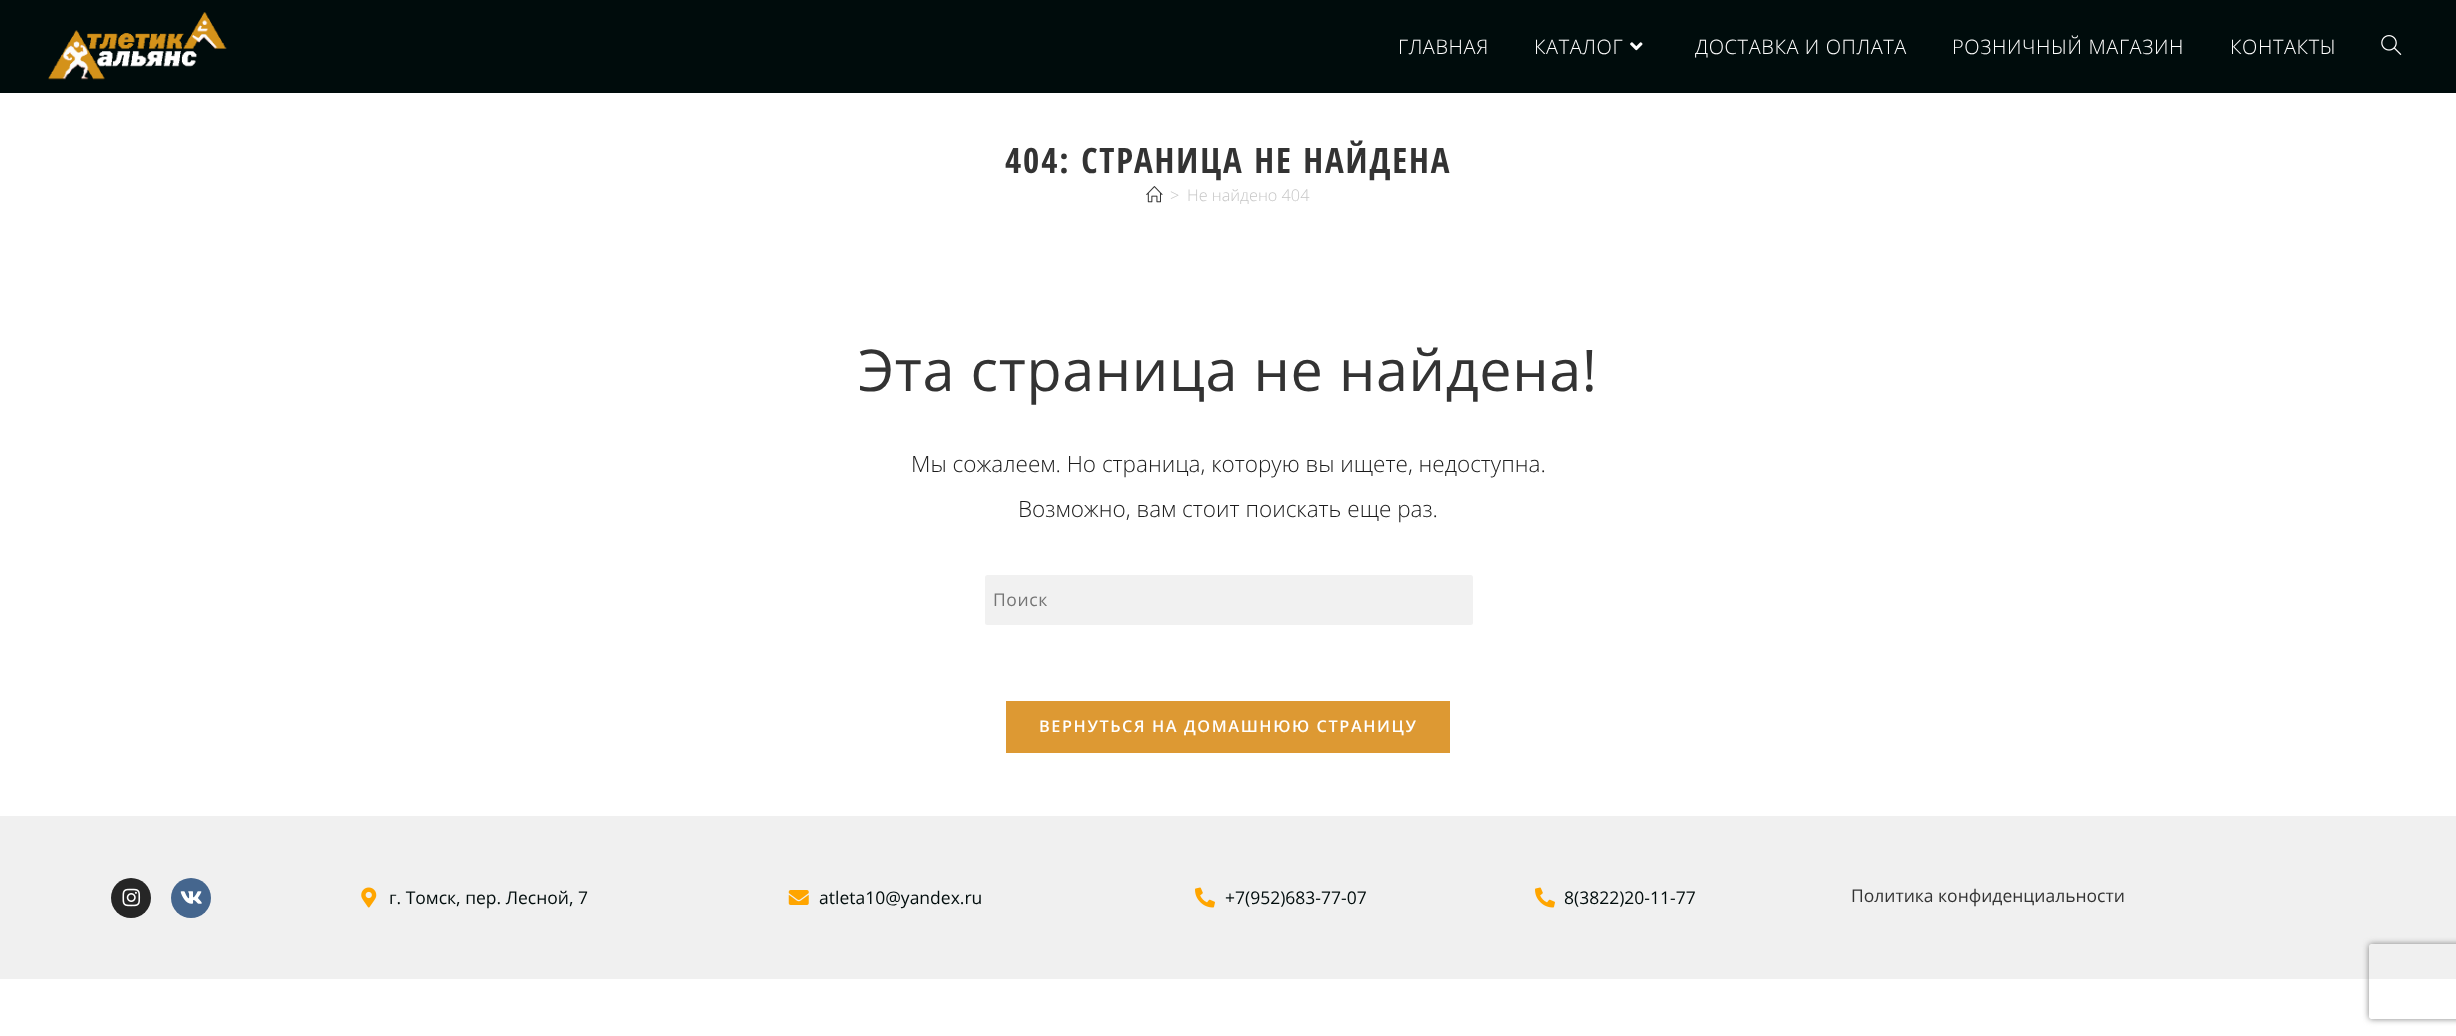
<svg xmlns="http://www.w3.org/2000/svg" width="2456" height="1036">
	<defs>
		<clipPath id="clip1"><path d="M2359 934H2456V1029H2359ZM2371.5 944H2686.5C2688 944 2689 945 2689 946.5V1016.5C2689 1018 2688 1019 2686.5 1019H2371.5C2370 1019 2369 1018 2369 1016.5V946.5C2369 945 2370 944 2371.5 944Z" clip-rule="evenodd" /></clipPath>
	</defs>
	<rect width="100%" height="100%" fill="#FFFFFF" />
	<rect x="0" y="0" width="2456" height="93" fill="#000C0C" />
	<image x="48" y="12" width="179" height="68" href="assets/img1.png" />
	<g font-family="Open Sans" font-size="20" font-weight="300" letter-spacing="0.6" fill="#FFFFFF">
		<text x="1398" y="54">ГЛАВНАЯ</text>
		<text x="1534" y="54">КАТАЛОГ</text>
	</g>
	<image x="1630" y="42" width="13" height="9" href="assets/img2.png" />
	<g font-family="Open Sans" font-size="20" font-weight="300" letter-spacing="0.6" fill="#FFFFFF">
		<text x="1695" y="54">ДОСТАВКА И ОПЛАТА</text>
		<text x="1952" y="54">РОЗНИЧНЫЙ МАГАЗИН</text>
		<text x="2230" y="54">КОНТАКТЫ</text>
	</g>
	<image x="2381" y="35" width="21" height="20" href="assets/img3.png" />
	<text x="1005" y="173" font-family="Open Sans Condensed" font-size="35" font-weight="700" letter-spacing="1.9" fill="#333333">404: СТРАНИЦА НЕ НАЙДЕНА</text>
	<image x="1146" y="186" width="17" height="17" href="assets/img4.png" />
	<g font-family="Open Sans" font-size="16.25" font-weight="300" fill="#C6C6C6">
		<text x="1170" y="201">&gt;</text>
		<text x="1187" y="201">Не найдено 404</text>
	</g>
	<text x="858" y="391" font-family="Open Sans" font-size="57.5" letter-spacing="0.6" fill="#333333">Эта страница не найдена!</text>
	<g font-family="Open Sans" font-size="22.5" font-weight="300" fill="#1C1C1C">
		<text x="911" y="472">Мы сожалеем. Но страница, которую вы ищете, недоступна.</text>
		<text x="1018" y="517">Возможно, вам стоит поискать еще раз.</text>
	</g>
	<rect x="985" y="575" width="488" height="50" rx="2.5" fill="#F1F1F1" />
	<text x="993" y="606" font-family="Open Sans" font-size="17.5" letter-spacing="0.6" fill="#757575">Поиск</text>
	<rect x="1006" y="701" width="444" height="52" fill="#DD9933" />
	<text x="1039" y="732" font-family="Open Sans" font-size="16.25" font-weight="600" letter-spacing="1.6" fill="#FFFFFF">ВЕРНУТЬСЯ НА ДОМАШНЮЮ СТРАНИЦУ</text>
	<rect x="0" y="816" width="2456" height="163" fill="#F0F0F0" />
	<circle cx="131" cy="898" r="20" fill="#262626" />
	<image x="122" y="888" width="19" height="19" href="assets/img5.png" />
	<circle cx="191" cy="898" r="20" fill="#45668E" />
	<image x="180" y="891" width="22" height="13" href="assets/img6.png" />
	<image x="361" y="887" width="16" height="21" href="assets/img7.png" />
	<text x="389" y="904" font-family="Open Sans" font-size="17.5" fill="#000C0C">г. Томск, пер. Лесной, 7</text>
	<image x="788" y="890" width="21" height="15" href="assets/img8.png" />
	<text x="819" y="904" font-family="Open Sans" font-size="17.5" fill="#000C0C">atleta10@yandex.ru</text>
	<image x="1195" y="887" width="20" height="21" href="assets/img9.png" />
	<text x="1225" y="904" font-family="Open Sans" font-size="17.5" fill="#000C0C">+7(952)683-77-07</text>
	<image x="1535" y="887" width="20" height="21" href="assets/img9.png" />
	<text x="1564" y="904" font-family="Open Sans" font-size="17.5" fill="#000C0C">8(3822)20-11-77</text>
	<text x="1851" y="902" font-family="Open Sans" font-size="17.5" fill="#333333">Политика конфиденциальности</text>
	<g clip-path="url(#clip1)">
		<rect x="2369" y="944" width="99" height="75" rx="2.5" fill="#808080" filter="blur(3px)" />
	</g>
</svg>
